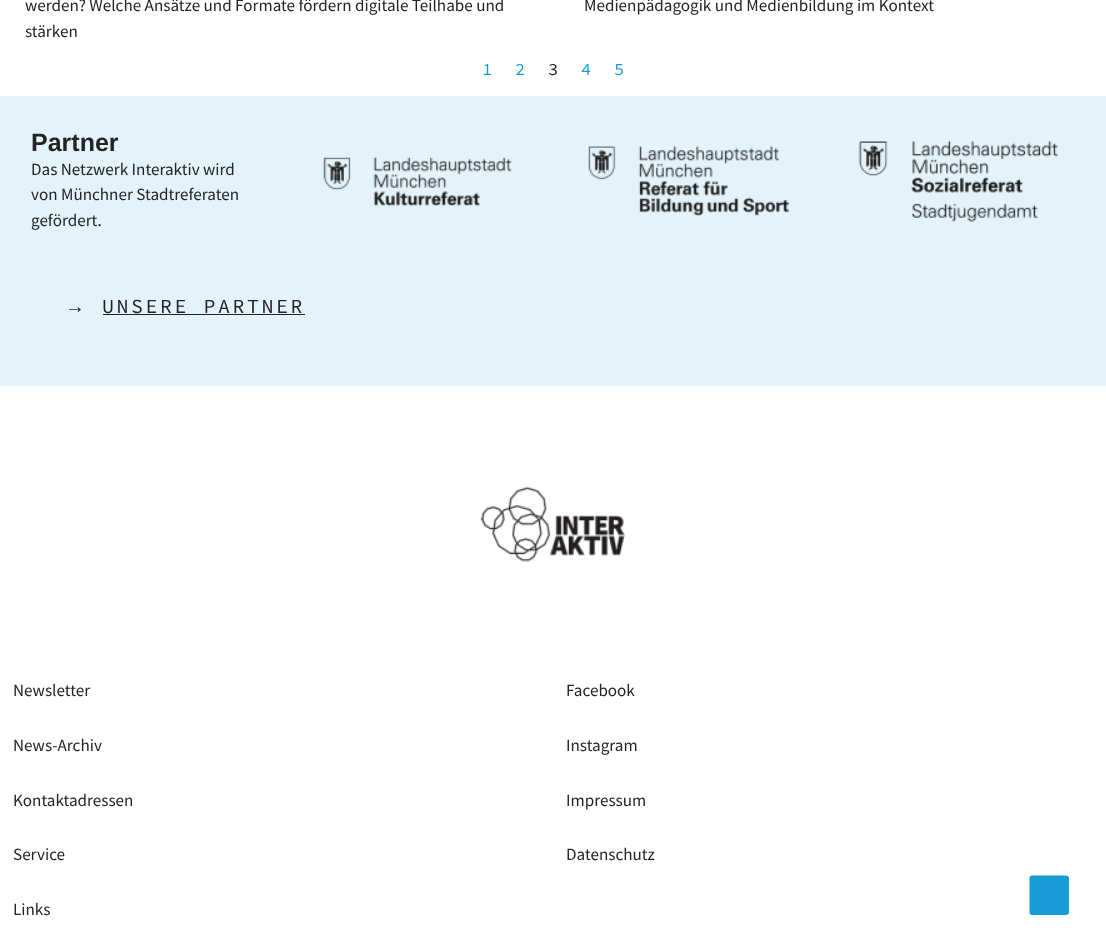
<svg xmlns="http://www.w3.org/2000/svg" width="1106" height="952">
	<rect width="100%" height="100%" fill="#FFFFFF" />
	<g font-family="Source Sans Pro" font-size="17.1" fill="#232323">
		<text x="25" y="11">werden? Welche Ansätze und Formate fördern digitale Teilhabe und</text>
		<text x="25" y="37">stärken</text>
		<text x="584" y="11">Medienpädagogik und Medienbildung im Kontext</text>
	</g>
	<g font-family="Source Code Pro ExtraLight" font-size="17.1" fill="#199CD6">
		<text x="482" y="75">1</text>
		<text x="515" y="75">2</text>
	</g>
	<text x="548" y="75" font-family="Source Code Pro ExtraLight" font-size="17.1" fill="#232323">3</text>
	<g font-family="Source Code Pro ExtraLight" font-size="17.1" fill="#199CD6">
		<text x="581" y="75">4</text>
		<text x="614" y="75">5</text>
	</g>
	<rect x="0" y="96" width="1106" height="290" fill="#E4F3FA" />
	<text x="31" y="151" font-family="Liberation Sans" font-size="25" font-weight="700" fill="#232323">Partner</text>
	<g font-family="Source Sans Pro" font-size="17.1" fill="#232323">
		<text x="31" y="175">Das Netzwerk Interaktiv wird</text>
		<text x="31" y="200">von Münchner Stadtreferaten</text>
		<text x="31" y="226">gefördert.</text>
	</g>
	<image x="323" y="157" width="189" height="49" href="assets/img1.png" />
	<image x="588" y="146" width="201" height="70" href="assets/img2.png" />
	<image x="858" y="141" width="200" height="81" href="assets/img3.png" />
	<text x="65" y="313" font-family="Liberation Sans" font-size="20" letter-spacing="2.5" fill="#232323">→</text>
	<text x="102" y="313" font-family="Source Code Pro ExtraLight" font-size="20" letter-spacing="2.5" fill="#232323">UNSERE PARTNER</text>
	<rect x="103" y="314" width="202" height="1" fill="#232323" />
	<image x="480" y="486" width="146" height="76" href="assets/img4.png" />
	<g font-family="Source Sans Pro" font-size="17.1" fill="#232323">
		<text x="13" y="696">Newsletter</text>
		<text x="13" y="751">News-Archiv</text>
		<text x="13" y="806">Kontaktadressen</text>
		<text x="13" y="860">Service</text>
		<text x="13" y="915">Links</text>
		<text x="566" y="696">Facebook</text>
		<text x="566" y="751">Instagram</text>
		<text x="566" y="806">Impressum</text>
		<text x="566" y="860">Datenschutz</text>
	</g>
	<path d="M1066 915H1032C1030.5 915 1029.5 914 1029.5 912.5V878C1029.5 876.5 1030.5 875.5 1032 875.5H1066C1067.5 875.5 1069 876.5 1069 878V912.5C1069 914 1067.5 915 1066 915Z" fill="#199CD6" />
</svg>
